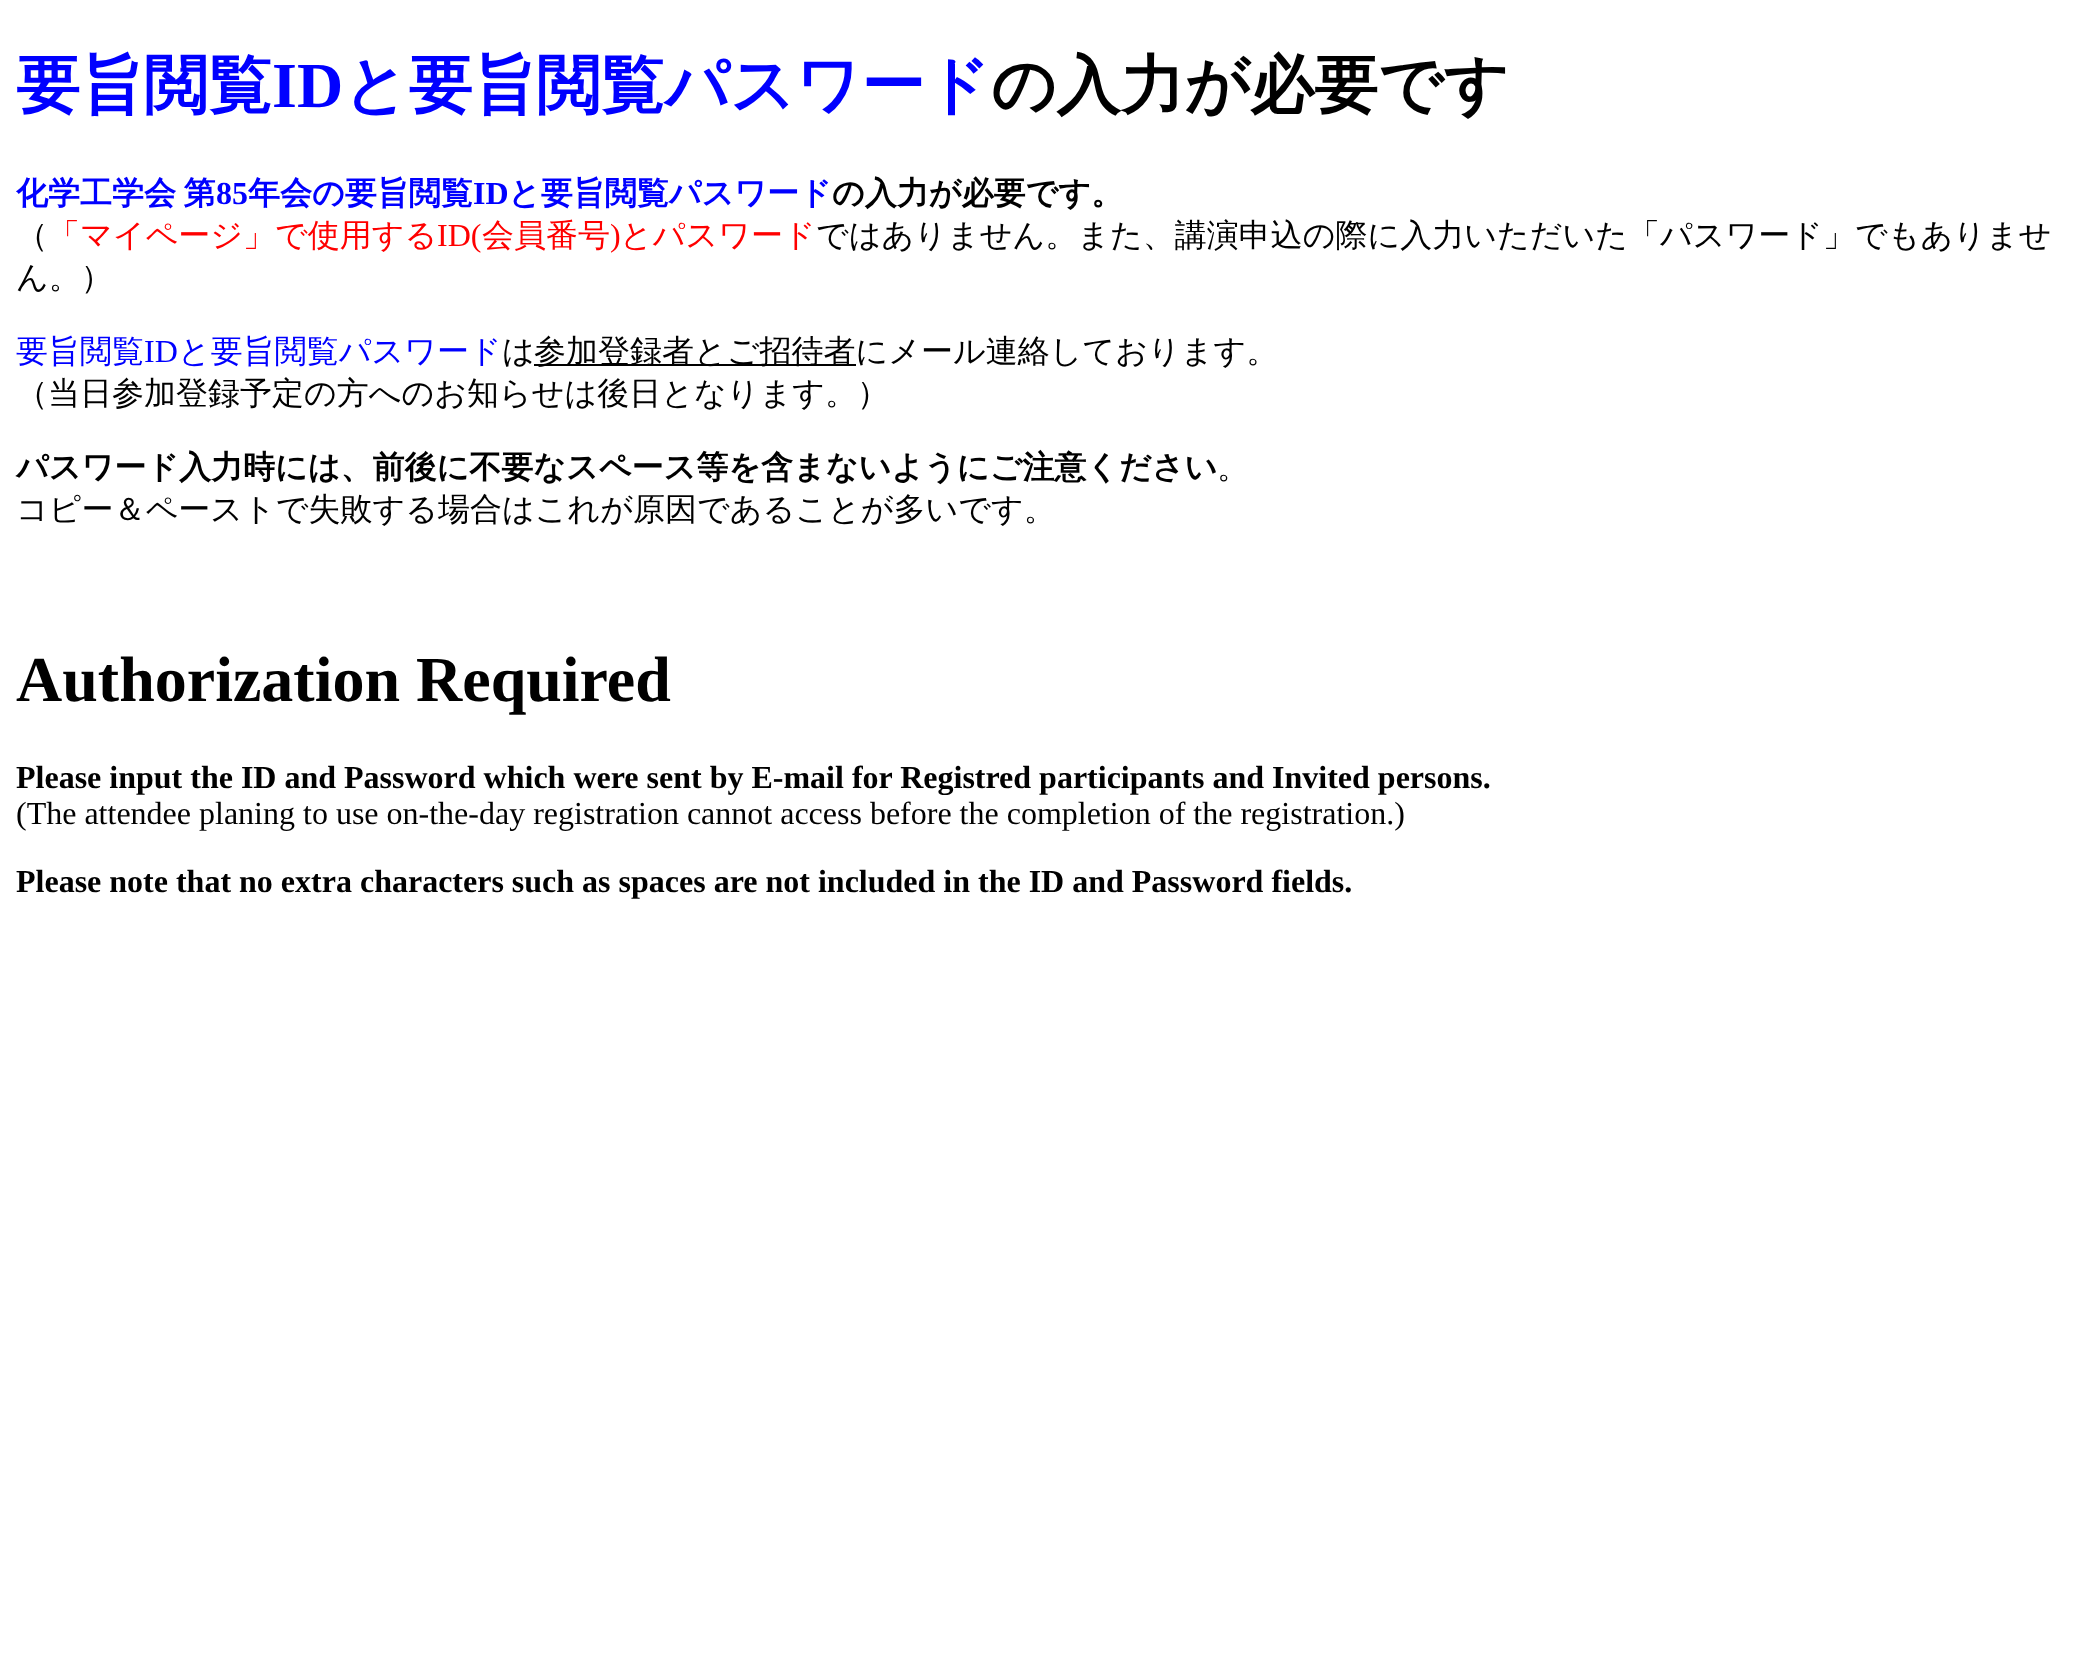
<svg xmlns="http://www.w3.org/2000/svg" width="2099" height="1672">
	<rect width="100%" height="100%" fill="#FFFFFF" />
	<text x="16" y="107" font-family="WenQuanYi Zen Hei" font-size="64" font-weight="700" fill="#0000FF">要旨閲覧</text>
	<text x="272" y="107" font-family="Liberation Serif" font-size="64" font-weight="700" fill="#0000FF">ID</text>
	<text x="343" y="107" font-family="WenQuanYi Zen Hei" font-size="64" font-weight="700" fill="#0000FF">と要旨閲覧パスワード</text>
	<text x="991" y="107" font-family="WenQuanYi Zen Hei" font-size="64" font-weight="700" fill="#000000">の入力が必要です</text>
	<text x="16" y="204" word-spacing="-2" font-family="WenQuanYi Zen Hei" font-size="32" font-weight="700" fill="#0000FF">化学工学会 第</text>
	<text x="216" y="204" font-family="Liberation Serif" font-size="32" font-weight="700" fill="#0000FF">85</text>
	<text x="248" y="204" font-family="WenQuanYi Zen Hei" font-size="32" font-weight="700" fill="#0000FF">年会の要旨閲覧</text>
	<text x="473" y="204" font-family="Liberation Serif" font-size="32" font-weight="700" fill="#0000FF">ID</text>
	<text x="508" y="204" font-family="WenQuanYi Zen Hei" font-size="32" font-weight="700" fill="#0000FF">と要旨閲覧パスワード</text>
	<text x="832" y="204" font-family="WenQuanYi Zen Hei" font-size="32" font-weight="700" fill="#000000">の入力が必要です。</text>
	<text x="16" y="246" font-family="WenQuanYi Zen Hei" font-size="32" font-weight="500" fill="#000000">（</text>
	<text x="48" y="246" font-family="WenQuanYi Zen Hei" font-size="32" font-weight="500" fill="#FF0000">「マイページ」で使用する</text>
	<text x="437" y="246" font-family="Liberation Serif" font-size="32" fill="#FF0000">ID(</text>
	<text x="482" y="246" font-family="WenQuanYi Zen Hei" font-size="32" font-weight="500" fill="#FF0000">会員番号</text>
	<text x="610" y="246" font-family="Liberation Serif" font-size="32" fill="#FF0000">)</text>
	<text x="620" y="246" font-family="WenQuanYi Zen Hei" font-size="32" font-weight="500" fill="#FF0000">とパスワード</text>
	<g font-family="WenQuanYi Zen Hei" font-size="32" font-weight="500" fill="#000000">
		<text x="816" y="246">ではありません。また、講演申込の際に入力いただいた「パスワード」でもありませ</text>
		<text x="16" y="288">ん。）</text>
	</g>
	<text x="16" y="362" font-family="WenQuanYi Zen Hei" font-size="32" font-weight="500" fill="#0000FF">要旨閲覧</text>
	<text x="144" y="362" font-family="Liberation Serif" font-size="32" fill="#0000FF">ID</text>
	<text x="178" y="362" font-family="WenQuanYi Zen Hei" font-size="32" font-weight="500" fill="#0000FF">と要旨閲覧パスワード</text>
	<text x="502" y="362" font-family="WenQuanYi Zen Hei" font-size="32" font-weight="500" fill="#000000">は</text>
	<rect x="534" y="364" width="322" height="2" fill="#000000" />
	<g font-family="WenQuanYi Zen Hei" font-size="32" font-weight="500" fill="#000000">
		<text x="534" y="362">参加登録者とご招待者にメール連絡しております。</text>
		<text x="16" y="404">（当日参加登録予定の方へのお知らせは後日となります。）</text>
	</g>
	<text x="16" y="478" font-family="WenQuanYi Zen Hei" font-size="32" font-weight="700" fill="#000000">パスワード入力時には、前後に不要なスペース等を含まないようにご注意ください</text>
	<g font-family="WenQuanYi Zen Hei" font-size="32" font-weight="500" fill="#000000">
		<text x="1217" y="478">。</text>
		<text x="16" y="520">コピー＆ペーストで失敗する場合はこれが原因であることが多いです。</text>
	</g>
	<text x="16" y="701" font-family="Liberation Serif" font-size="64" font-weight="700" fill="#000000">Authorization Required</text>
	<text x="16" y="788" font-family="Liberation Serif" font-size="32" font-weight="700" fill="#000000">Please input the ID and Password which were sent by E-mail for Registred participants and Invited persons.</text>
	<text x="16" y="824" font-family="Liberation Serif" font-size="32" fill="#000000">(The attendee planing to use on-the-day registration cannot access before the completion of the registration.)</text>
	<text x="16" y="892" font-family="Liberation Serif" font-size="32" font-weight="700" fill="#000000">Please note that no extra characters such as spaces are not included in the ID and Password fields.</text>
</svg>
